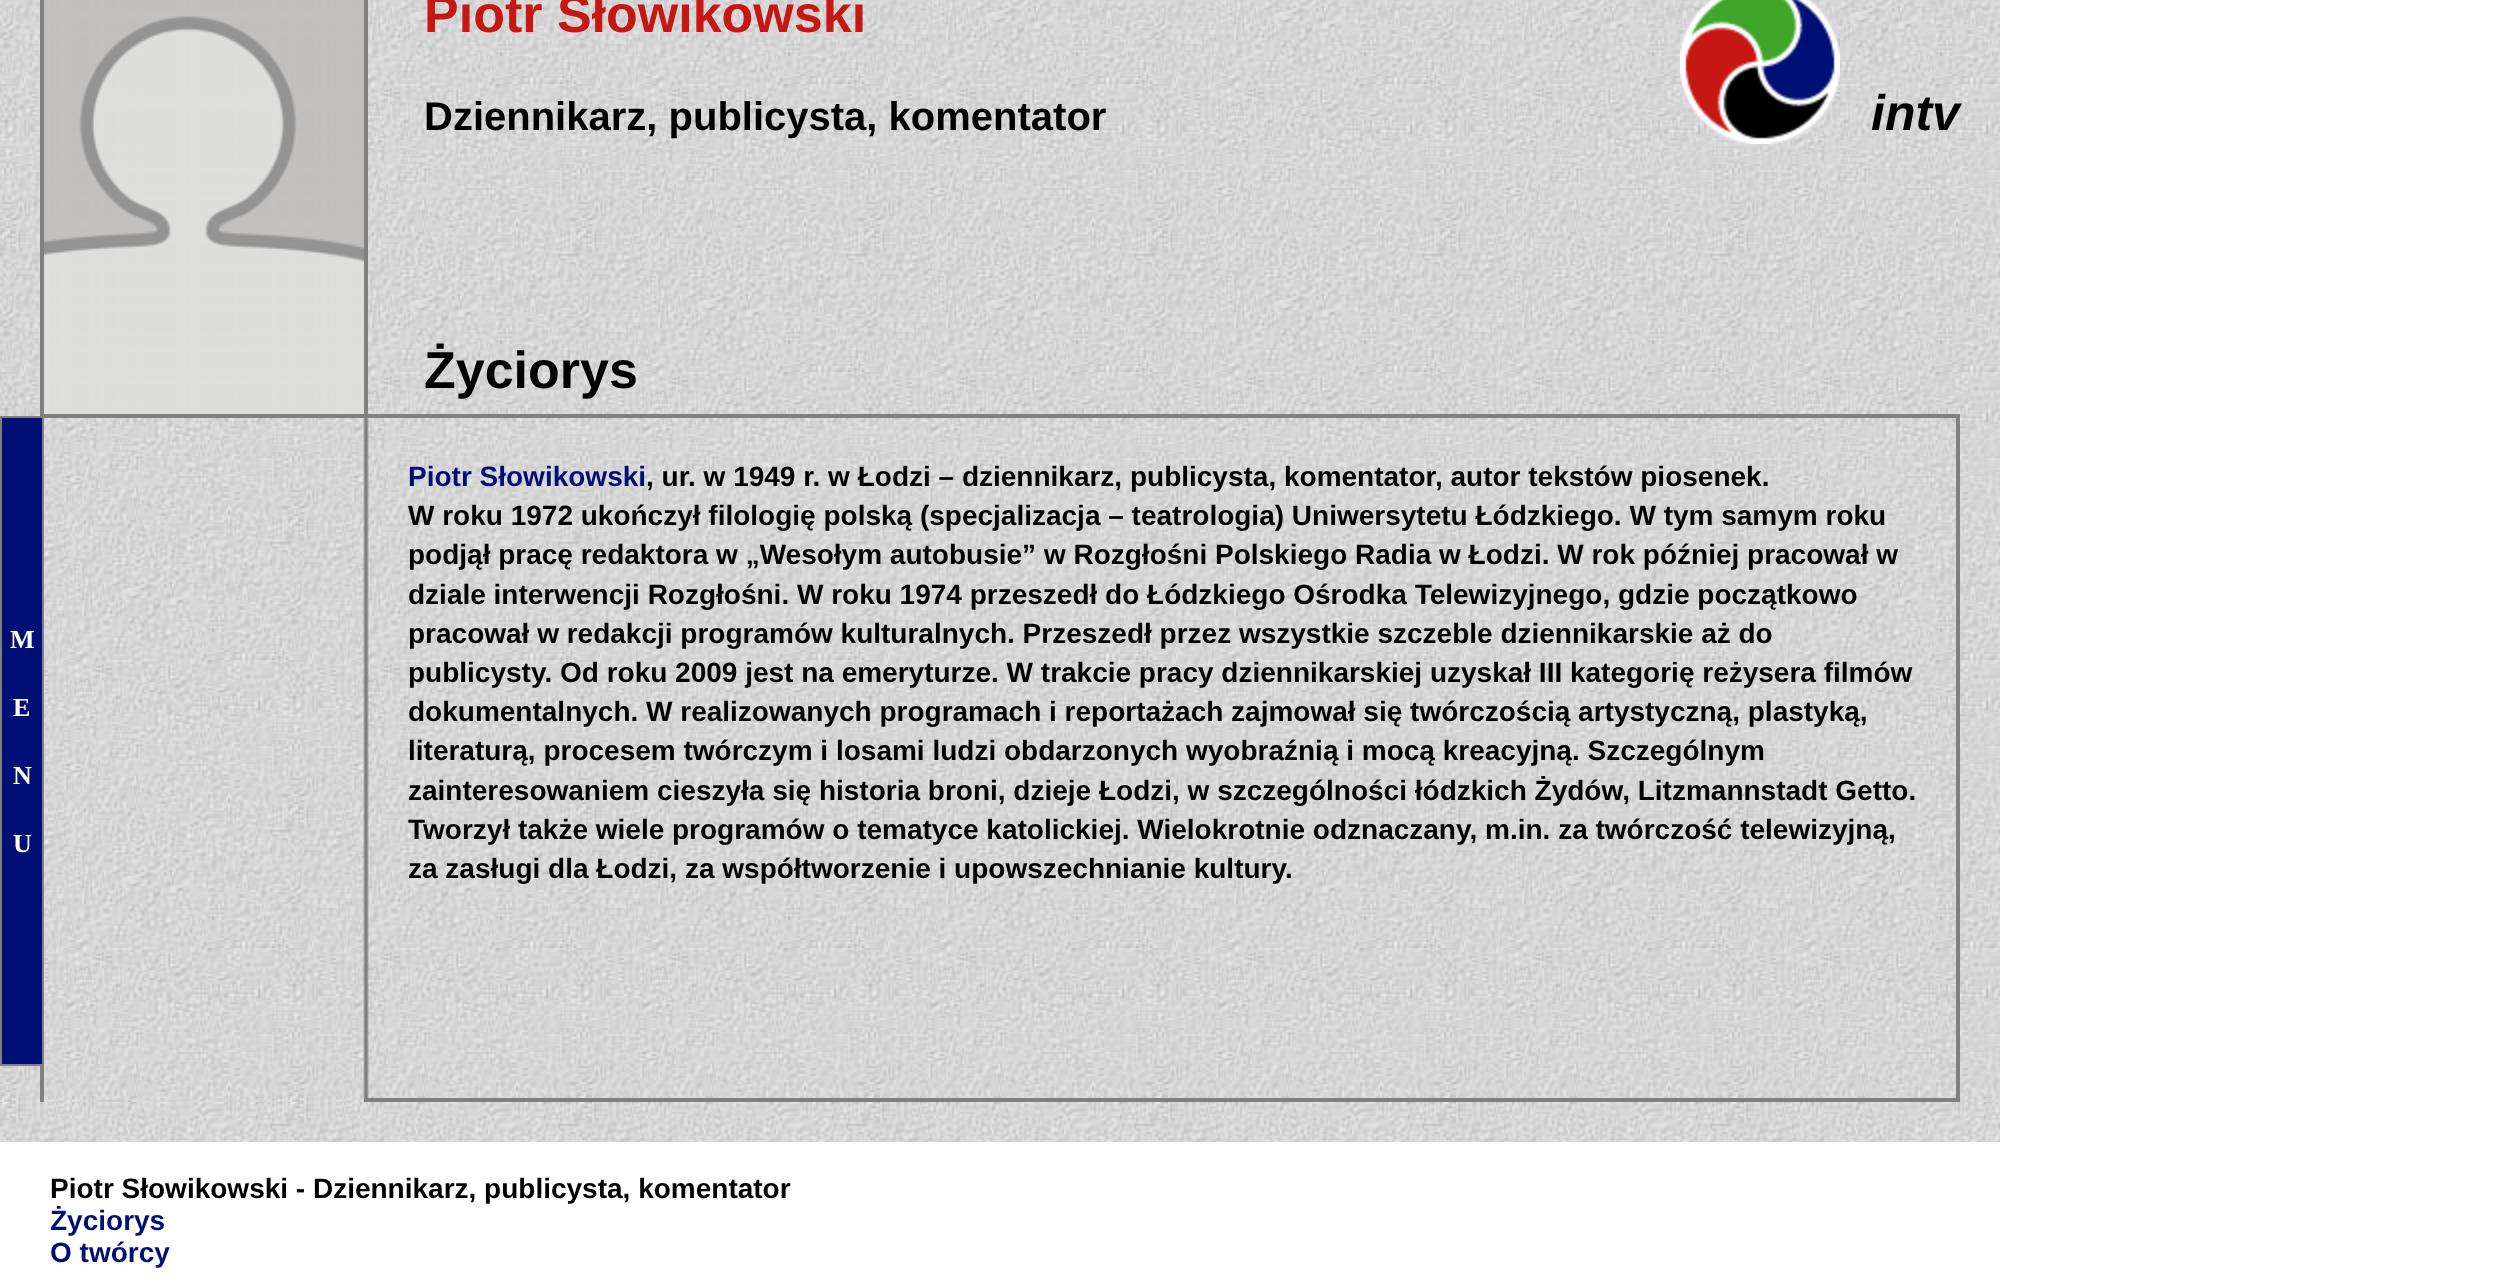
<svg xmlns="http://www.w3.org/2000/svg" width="2516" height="1283">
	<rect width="100%" height="100%" fill="#FFFFFF" />
	<image x="0" y="0" width="2000" height="1102" href="assets/img1.png" />
	<rect x="40" y="414" width="1920" height="4" fill="#808080" />
	<rect x="0" y="416" width="44" height="650" fill="#808080" />
	<rect x="2" y="418" width="40" height="646" fill="#000F75" />
	<g font-family="Liberation Serif" font-size="26" font-weight="700" fill="#FFFFFF">
		<text x="10" y="648">M</text>
		<text x="13" y="716">E</text>
		<text x="13" y="784">N</text>
		<text x="13" y="852">U</text>
	</g>
	<rect x="364" y="0" width="4" height="414" fill="#808080" />
	<rect x="40" y="0" width="4" height="414" fill="#808080" />
	<image x="44" y="0" width="320" height="414" href="assets/img2.png" />
	<text x="424" y="32" font-family="Liberation Sans" font-size="52" font-weight="700" fill="#C71712">Piotr Słowikowski</text>
	<image x="1680" y="0" width="160" height="144" href="assets/img3.png" />
	<text x="1871" y="130" font-family="Liberation Sans" font-size="50" font-weight="700" font-style="italic" fill="#000000">intv</text>
	<text x="424" y="130" font-family="Liberation Sans" font-size="40" font-weight="700" fill="#000000">Dziennikarz, publicysta, komentator</text>
	<text x="424" y="388" font-family="Liberation Sans" font-size="52" font-weight="700" fill="#000000">Życiorys</text>
	<image x="363" y="418" width="6" height="684" href="assets/img4.png" />
	<rect x="1956" y="418" width="4" height="684" fill="#808080" />
	<rect x="40" y="1066" width="4" height="36" fill="#808080" />
	<text x="408" y="486" font-family="Liberation Sans" font-size="28" font-weight="700" fill="#000F75">Piotr Słowikowski</text>
	<g font-family="Liberation Sans" font-size="28" font-weight="700" fill="#000000">
		<text x="646" y="486">, ur. w 1949 r. w Łodzi – dziennikarz, publicysta, komentator, autor tekstów piosenek.</text>
		<text x="408" y="525">W roku 1972 ukończył filologię polską (specjalizacja – teatrologia) Uniwersytetu Łódzkiego. W tym samym roku</text>
		<text x="408" y="564">podjął pracę redaktora w „Wesołym autobusie” w Rozgłośni Polskiego Radia w Łodzi. W rok później pracował w</text>
		<text x="408" y="604">dziale interwencji Rozgłośni. W roku 1974 przeszedł do Łódzkiego Ośrodka Telewizyjnego, gdzie początkowo</text>
		<text x="408" y="643">pracował w redakcji programów kulturalnych. Przeszedł przez wszystkie szczeble dziennikarskie aż do</text>
		<text x="408" y="682">publicysty. Od roku 2009 jest na emeryturze. W trakcie pracy dziennikarskiej uzyskał III kategorię reżysera filmów</text>
		<text x="408" y="721">dokumentalnych. W realizowanych programach i reportażach zajmował się twórczością artystyczną, plastyką,</text>
		<text x="408" y="760">literaturą, procesem twórczym i losami ludzi obdarzonych wyobraźnią i mocą kreacyjną. Szczególnym</text>
		<text x="408" y="800">zainteresowaniem cieszyła się historia broni, dzieje Łodzi, w szczególności łódzkich Żydów, Litzmannstadt Getto.</text>
		<text x="408" y="839">Tworzył także wiele programów o tematyce katolickiej. Wielokrotnie odznaczany, m.in. za twórczość telewizyjną,</text>
		<text x="408" y="878">za zasługi dla Łodzi, za współtworzenie i upowszechnianie kultury.</text>
	</g>
	<image x="0" y="1102" width="2000" height="40" href="assets/img5.png" />
	<rect x="364" y="1098" width="1596" height="4" fill="#808080" />
	<text x="50" y="1198" font-family="Liberation Sans" font-size="28" font-weight="700" fill="#000000">Piotr Słowikowski - Dziennikarz, publicysta, komentator</text>
	<g font-family="Liberation Sans" font-size="28" font-weight="700" fill="#000F75">
		<text x="50" y="1230">Życiorys</text>
		<text x="50" y="1262">O twórcy</text>
	</g>
</svg>
